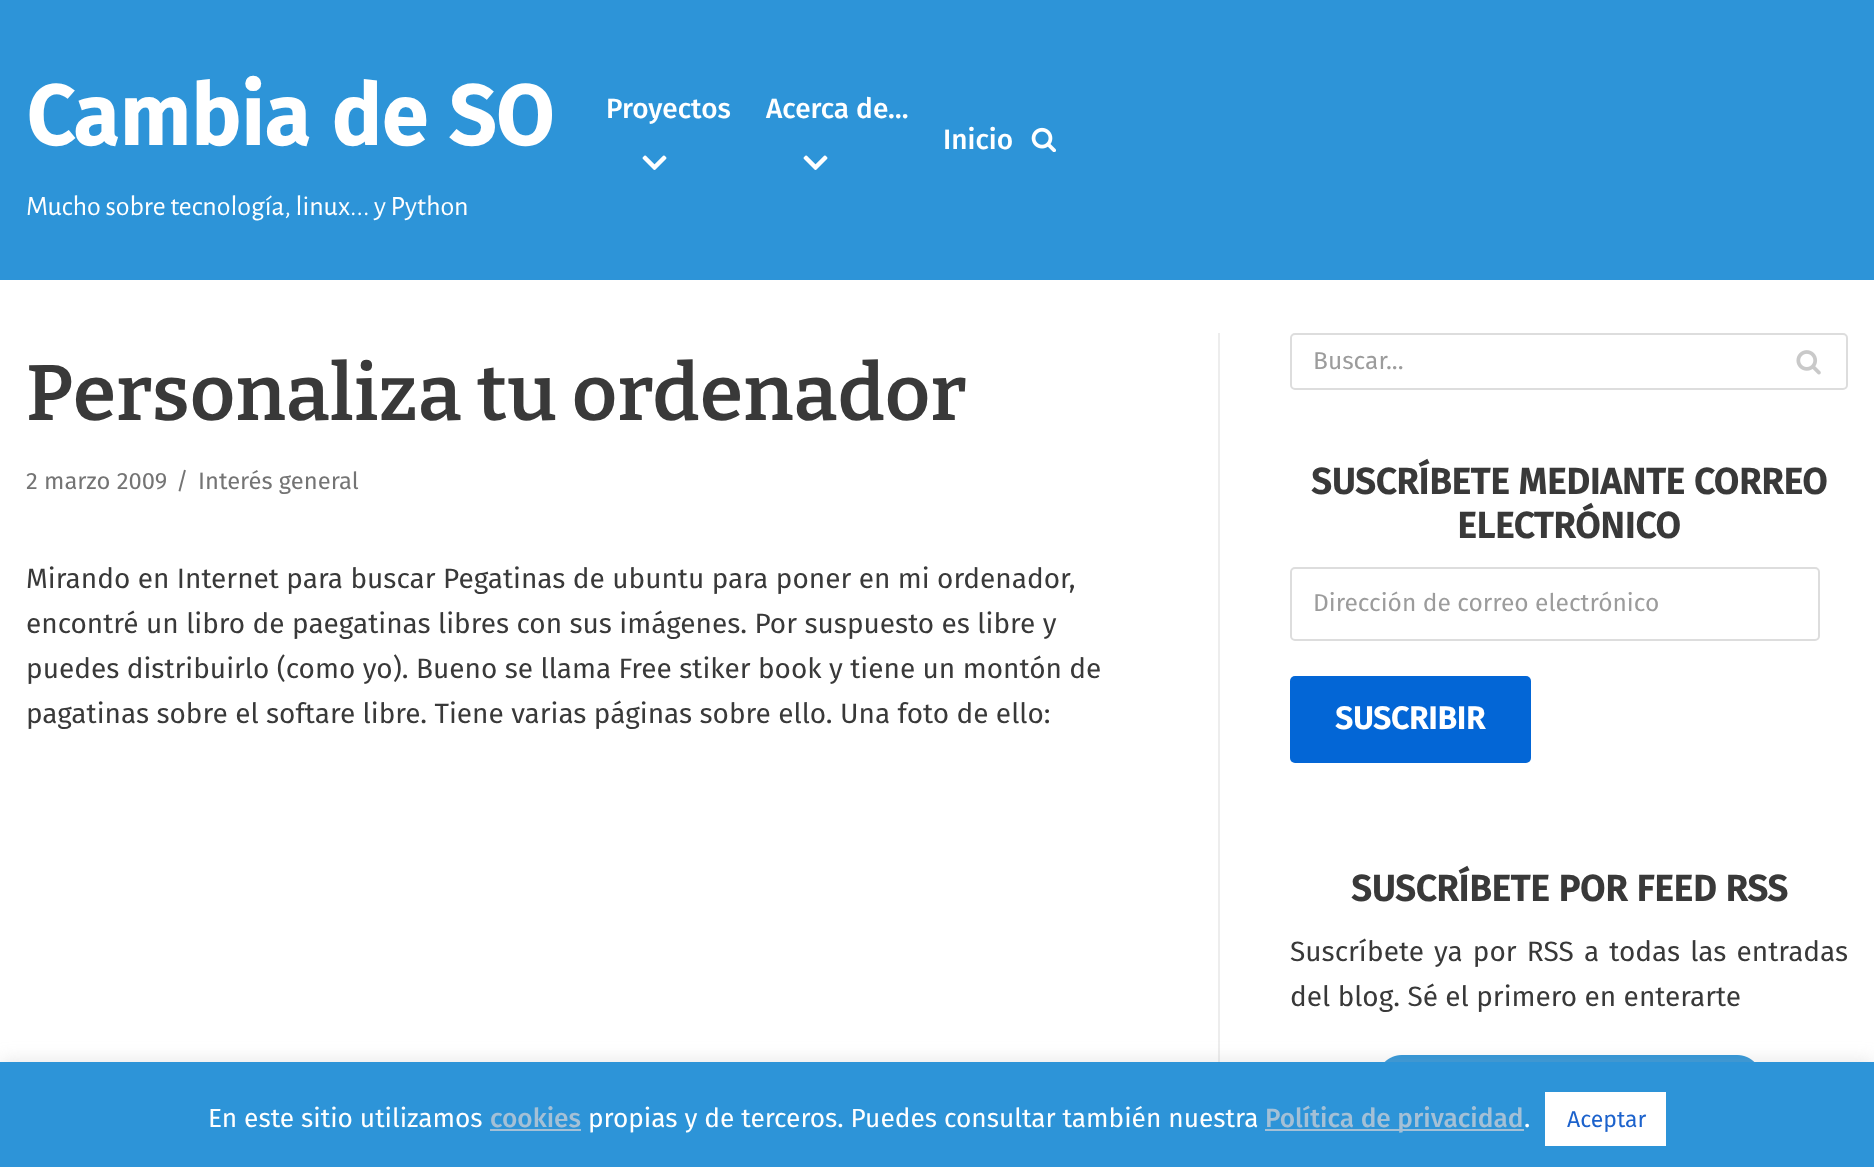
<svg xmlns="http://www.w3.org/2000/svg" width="1874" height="1167">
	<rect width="100%" height="100%" fill="#FFFFFF" />
	<rect x="0" y="0" width="1874" height="280" fill="#2D94D8" />
	<text x="26" y="145" font-family="Fira Sans" font-size="84" font-weight="700" fill="#FFFFFF">Cambia de SO</text>
	<text x="26" y="215" font-family="Alegreya Sans" font-size="28" fill="#FFFFFF">Mucho sobre tecnología, linux... y Python</text>
	<text x="606" y="118" font-family="Fira Sans" font-size="28" font-weight="500" fill="#FFFFFF">Proyectos</text>
	<image x="642" y="155" width="25" height="15" href="assets/img1.png" />
	<text x="766" y="118" font-family="Fira Sans" font-size="28" font-weight="500" fill="#FFFFFF">Acerca de…</text>
	<image x="803" y="155" width="25" height="15" href="assets/img1.png" />
	<text x="943" y="149" font-family="Fira Sans" font-size="28" font-weight="500" fill="#FFFFFF">Inicio</text>
	<image x="1031" y="127" width="25" height="25" href="assets/img2.png" />
	<text x="26" y="420" font-family="Bitter" font-size="78.4" font-weight="600" letter-spacing="0.35" fill="#393939">Personaliza tu ordenador</text>
	<g font-family="Fira Sans" font-size="23.75" fill="#747474">
		<text x="26" y="489">2 marzo 2009</text>
		<text x="176" y="489">/</text>
		<text x="198" y="489">Interés general</text>
	</g>
	<g font-family="Fira Sans" font-size="28" fill="#393939">
		<text x="26" y="588">Mirando en Internet para buscar Pegatinas de ubuntu para poner en mi ordenador,</text>
		<text x="26" y="633">encontré un libro de paegatinas libres con sus imágenes. Por suspuesto es libre y</text>
		<text x="26" y="678">puedes distribuirlo (como yo). Bueno se llama Free stiker book y tiene un montón de</text>
		<text x="26" y="723">pagatinas sobre el softare libre. Tiene varias páginas sobre ello. Una foto de ello:</text>
	</g>
	<rect x="1218" y="333" width="2" height="729" fill="#EDEDED" />
	<rect x="1291" y="334" width="556" height="55" rx="4" fill="none" stroke="#DDDDDD" stroke-width="2" />
	<text x="1313" y="369" font-family="Fira Sans" font-size="24.5" fill="#9C9C9C">Buscar...</text>
	<image x="1796" y="350" width="25" height="25" href="assets/img3.png" />
	<g font-family="Fira Sans" font-size="36.4" font-weight="700" fill="#393939">
		<text x="1311" y="494">SUSCRÍBETE MEDIANTE CORREO</text>
		<text x="1457" y="538">ELECTRÓNICO</text>
	</g>
	<rect x="1291" y="568" width="528" height="72" rx="4" fill="none" stroke="#DDDDDD" stroke-width="2" />
	<text x="1313" y="611" font-family="Fira Sans" font-size="24.5" fill="#9C9C9C">Dirección de correo electrónico</text>
	<rect x="1290" y="676" width="241" height="87" rx="5" fill="#0366D6" />
	<text x="1335" y="729" font-family="Fira Sans" font-size="31.5" font-weight="700" fill="#FFFFFF">SUSCRIBIR</text>
	<text x="1351" y="901" font-family="Fira Sans" font-size="36.4" font-weight="700" fill="#393939">SUSCRÍBETE POR FEED RSS</text>
	<g font-family="Fira Sans" font-size="28" fill="#393939">
		<text x="1290" y="961" word-spacing="2.75">Suscríbete ya por RSS a todas las entradas</text>
		<text x="1290" y="1006">del blog. Sé el primero en enterarte</text>
	</g>
	<image x="1384" y="1055" width="371" height="7" href="assets/img4.png" />
	<rect x="0" y="1061" width="1874" height="105" fill="#ACABAB" fill-opacity="0.3" filter="blur(9px)" />
	<rect x="0" y="1062" width="1874" height="105" fill="#2D94D8" />
	<text x="208" y="1127" font-family="Fira Sans" font-size="26.25" fill="#FFFFFF">En este sitio utilizamos</text>
	<text x="490" y="1127" font-family="Fira Sans" font-size="26.25" font-weight="500" fill="#A4C0D6">cookies</text>
	<rect x="490" y="1129" width="91" height="2" fill="#A4C0D6" />
	<text x="588" y="1127" font-family="Fira Sans" font-size="26.25" fill="#FFFFFF">propias y de terceros. Puedes consultar también nuestra</text>
	<rect x="1265" y="1129" width="259" height="2" fill="#A4C0D6" />
	<text x="1265" y="1127" font-family="Fira Sans" font-size="26.25" font-weight="500" fill="#A4C0D6">Política de privacidad</text>
	<text x="1524" y="1127" font-family="Fira Sans" font-size="26.25" fill="#FFFFFF">.</text>
	<rect x="1545" y="1092" width="121" height="54" fill="#FFFFFF" />
	<text x="1567" y="1127" font-family="Fira Sans" font-size="23" fill="#1C62CC">Aceptar</text>
</svg>
